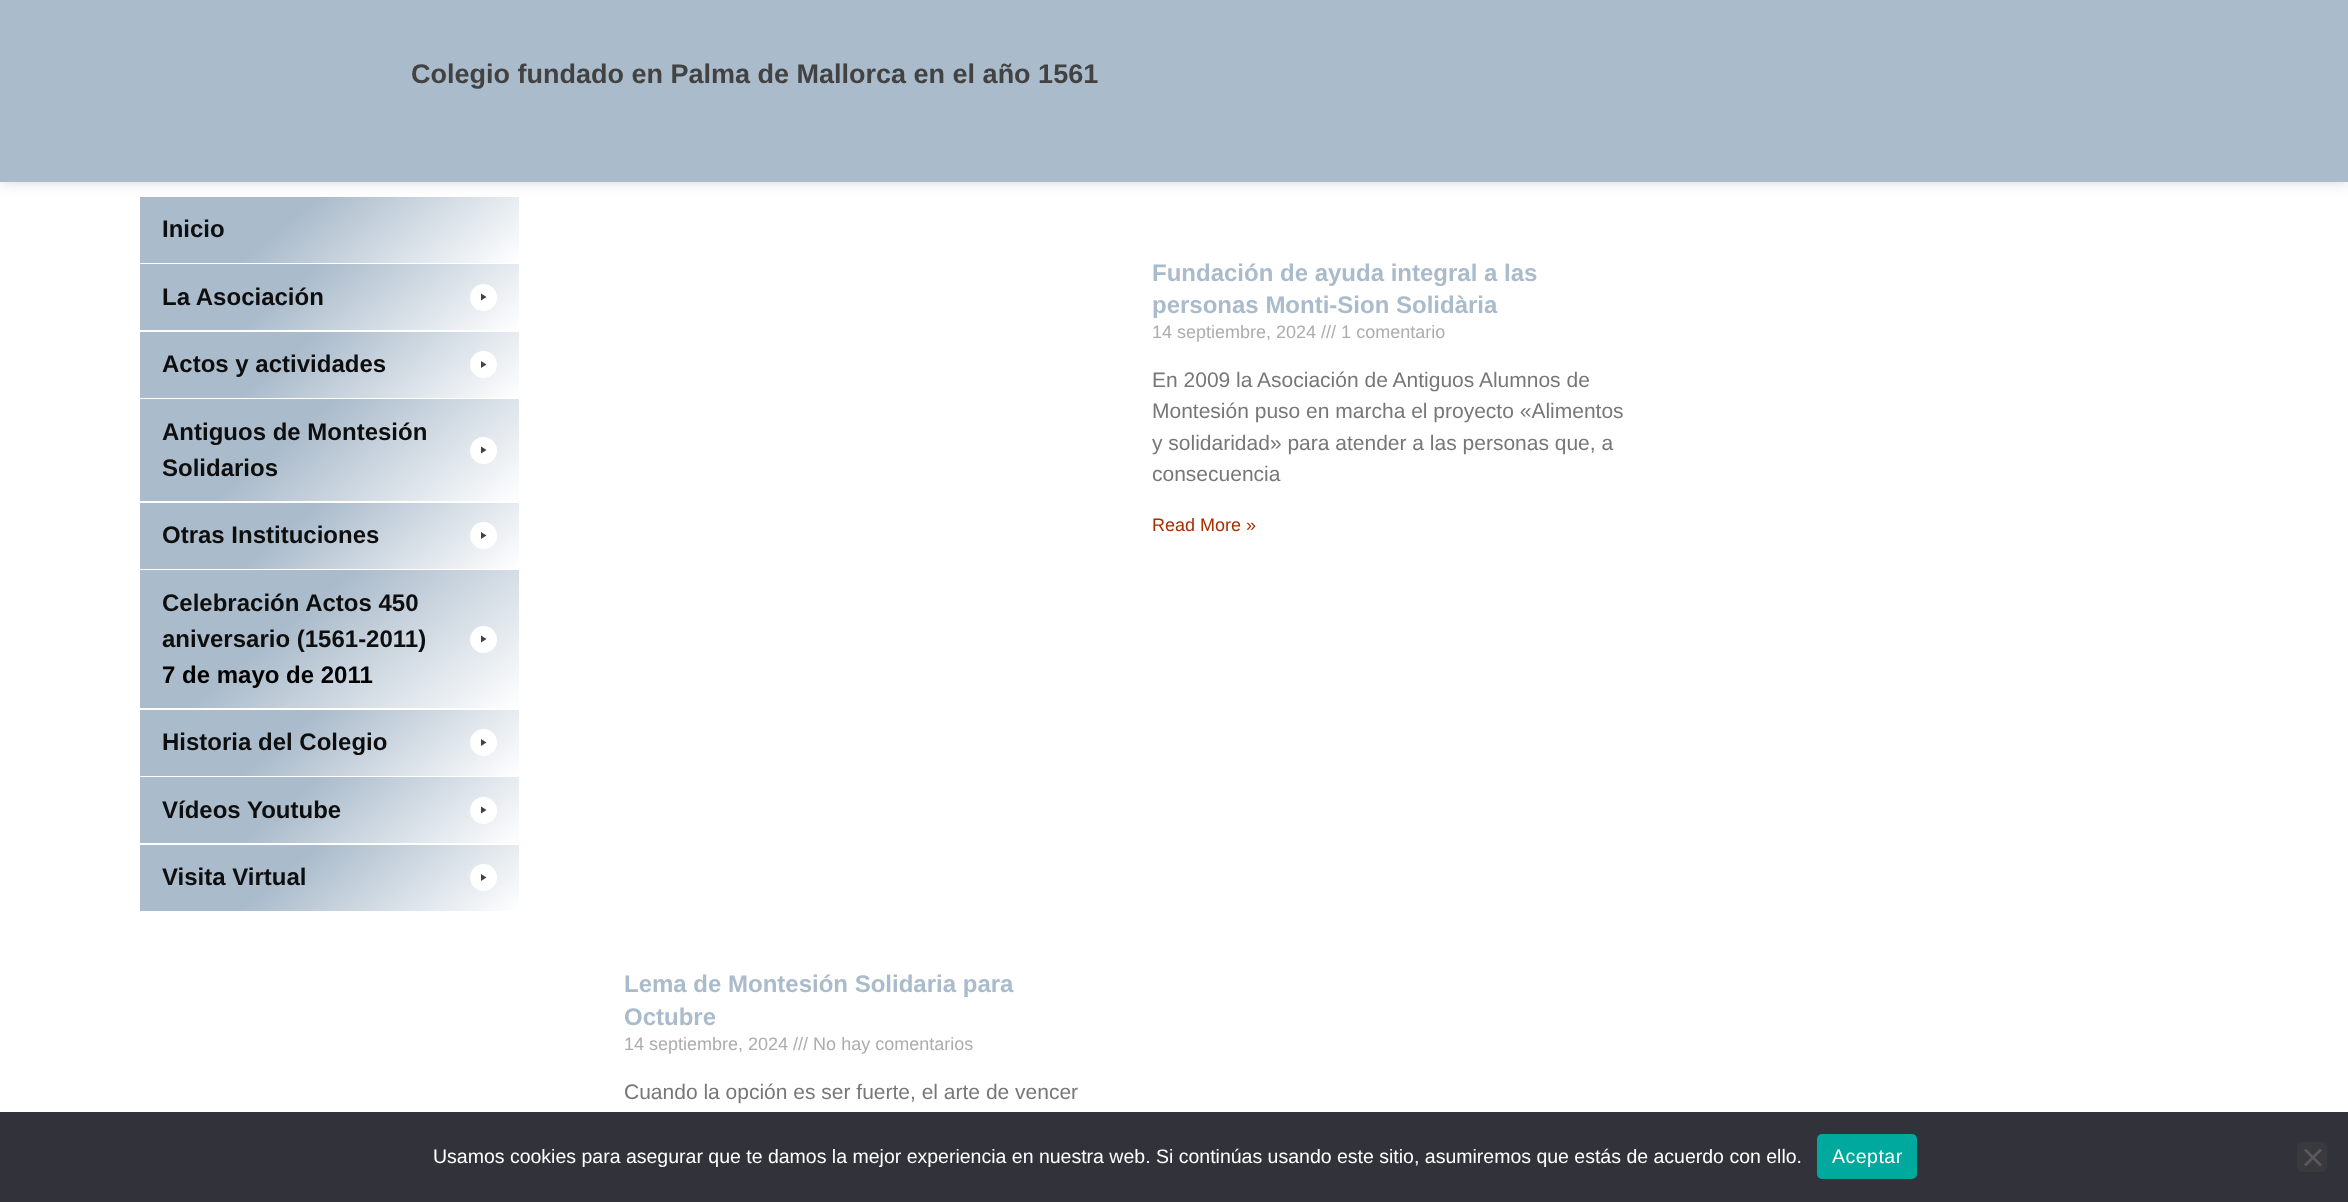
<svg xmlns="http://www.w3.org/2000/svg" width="2348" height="1202">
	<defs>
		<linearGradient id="g1" gradientUnits="userSpaceOnUse" x1="235" y1="117" x2="424" y2="342"><stop offset="0.39" stop-color="#AABBCB" /><stop offset="1" stop-color="#FFFFFF" /></linearGradient>
		<linearGradient id="g2" gradientUnits="userSpaceOnUse" x1="235" y1="184" x2="424" y2="410"><stop offset="0.39" stop-color="#AABBCB" /><stop offset="1" stop-color="#FFFFFF" /></linearGradient>
		<linearGradient id="g3" gradientUnits="userSpaceOnUse" x1="235" y1="252" x2="424" y2="477"><stop offset="0.39" stop-color="#AABBCB" /><stop offset="1" stop-color="#FFFFFF" /></linearGradient>
		<linearGradient id="g4" gradientUnits="userSpaceOnUse" x1="226" y1="327" x2="433" y2="573"><stop offset="0.39" stop-color="#AABBCB" /><stop offset="1" stop-color="#FFFFFF" /></linearGradient>
		<linearGradient id="g5" gradientUnits="userSpaceOnUse" x1="235" y1="423" x2="424" y2="648"><stop offset="0.39" stop-color="#AABBCB" /><stop offset="1" stop-color="#FFFFFF" /></linearGradient>
		<linearGradient id="g6" gradientUnits="userSpaceOnUse" x1="217" y1="505" x2="442" y2="773"><stop offset="0.39" stop-color="#AABBCB" /><stop offset="1" stop-color="#FFFFFF" /></linearGradient>
		<linearGradient id="g7" gradientUnits="userSpaceOnUse" x1="235" y1="630" x2="424" y2="855"><stop offset="0.39" stop-color="#AABBCB" /><stop offset="1" stop-color="#FFFFFF" /></linearGradient>
		<linearGradient id="g8" gradientUnits="userSpaceOnUse" x1="235" y1="697" x2="424" y2="923"><stop offset="0.39" stop-color="#AABBCB" /><stop offset="1" stop-color="#FFFFFF" /></linearGradient>
		<linearGradient id="g9" gradientUnits="userSpaceOnUse" x1="235" y1="765" x2="424" y2="990"><stop offset="0.39" stop-color="#AABBCB" /><stop offset="1" stop-color="#FFFFFF" /></linearGradient>
	</defs>
	<rect width="100%" height="100%" fill="#FFFFFF" />
	<rect x="140" y="197" width="379" height="66" fill="url(#g1)" />
	<rect x="0" y="-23" width="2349" height="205" fill="#000000" fill-opacity="0.16" filter="blur(7.5px)" />
	<rect x="0" y="0" width="2348" height="182" fill="#AABBCB" />
	<text x="411" y="83" font-family="Liberation Sans" font-size="27" font-weight="700" fill="#424242">Colegio fundado en Palma de Mallorca en el año 1561</text>
	<text x="162" y="237" font-family="Liberation Sans" font-size="24" font-weight="700" fill="#0E0E0E">Inicio</text>
	<rect x="140" y="264" width="379" height="66" fill="url(#g2)" />
	<text x="162" y="305" font-family="Liberation Sans" font-size="24" font-weight="700" fill="#0E0E0E">La Asociación</text>
	<circle cx="483.5" cy="297.5" r="13.5" fill="#FFFFFF" />
	<path d="M481 293.5L486.5 297L481 300.5Z" fill="#424242" />
	<rect x="140" y="332" width="379" height="66" fill="url(#g3)" />
	<text x="162" y="372" font-family="Liberation Sans" font-size="24" font-weight="700" fill="#0E0E0E">Actos y actividades</text>
	<circle cx="483.5" cy="364.5" r="13.5" fill="#FFFFFF" />
	<path d="M481 361L486.5 364.5L481 368Z" fill="#424242" />
	<rect x="140" y="399" width="379" height="102" fill="url(#g4)" />
	<g font-family="Liberation Sans" font-size="24" font-weight="700" fill="#0E0E0E">
		<text x="162" y="440">Antiguos de Montesión</text>
		<text x="162" y="476">Solidarios</text>
	</g>
	<circle cx="483.5" cy="450.5" r="13.5" fill="#FFFFFF" />
	<path d="M481 446.5L486.5 450L481 453.5Z" fill="#424242" />
	<rect x="140" y="503" width="379" height="66" fill="url(#g5)" />
	<text x="162" y="543" font-family="Liberation Sans" font-size="24" font-weight="700" fill="#0E0E0E">Otras Instituciones</text>
	<circle cx="483.5" cy="535.5" r="13.5" fill="#FFFFFF" />
	<path d="M481 532L486.5 535.5L481 539Z" fill="#424242" />
	<rect x="140" y="570" width="379" height="138" fill="url(#g6)" />
	<g font-family="Liberation Sans" font-size="24" font-weight="700" fill="#0E0E0E">
		<text x="162" y="611">Celebración Actos 450</text>
		<text x="162" y="647">aniversario (1561-2011)</text>
	</g>
	<text x="162" y="683" font-family="Liberation Sans" font-size="24" font-weight="700" fill="#000000">7 de mayo de 2011</text>
	<circle cx="483.5" cy="639.5" r="13.5" fill="#FFFFFF" />
	<path d="M481 635.5L486.5 639L481 642.5Z" fill="#424242" />
	<rect x="140" y="710" width="379" height="66" fill="url(#g7)" />
	<text x="162" y="750" font-family="Liberation Sans" font-size="24" font-weight="700" fill="#0E0E0E">Historia del Colegio</text>
	<circle cx="483.5" cy="742.5" r="13.5" fill="#FFFFFF" />
	<path d="M481 739L486.5 742.5L481 746Z" fill="#424242" />
	<rect x="140" y="777" width="379" height="66" fill="url(#g8)" />
	<text x="162" y="818" font-family="Liberation Sans" font-size="24" font-weight="700" fill="#0E0E0E">Vídeos Youtube</text>
	<circle cx="483.5" cy="810.5" r="13.5" fill="#FFFFFF" />
	<path d="M481 806.5L486.5 810L481 813.5Z" fill="#424242" />
	<rect x="140" y="845" width="379" height="66" fill="url(#g9)" />
	<text x="162" y="885" font-family="Liberation Sans" font-size="24" font-weight="700" fill="#0E0E0E">Visita Virtual</text>
	<circle cx="483.5" cy="877.5" r="13.5" fill="#FFFFFF" />
	<path d="M481 874L486.5 877.5L481 881Z" fill="#424242" />
	<g font-family="Liberation Sans" font-size="24" font-weight="700" fill="#AABBCB">
		<text x="1152" y="281">Fundación de ayuda integral a las</text>
		<text x="1152" y="313">personas Monti-Sion Solidària</text>
	</g>
	<text x="1152" y="338" font-family="Liberation Sans" font-size="18" fill="#ADADAD">14 septiembre, 2024 /// 1 comentario</text>
	<g font-family="Liberation Sans" font-size="21" fill="#777777">
		<text x="1152" y="387">En 2009 la Asociación de Antiguos Alumnos de</text>
		<text x="1152" y="418">Montesión puso en marcha el proyecto «Alimentos</text>
		<text x="1152" y="450">y solidaridad» para atender a las personas que, a</text>
		<text x="1152" y="481">consecuencia</text>
	</g>
	<text x="1152" y="531" font-family="Liberation Sans" font-size="18" fill="#A72E00">Read More »</text>
	<g font-family="Liberation Sans" font-size="24" font-weight="700" fill="#AABBCB">
		<text x="624" y="992">Lema de Montesión Solidaria para</text>
		<text x="624" y="1025">Octubre</text>
	</g>
	<text x="624" y="1050" font-family="Liberation Sans" font-size="18" fill="#ADADAD">14 septiembre, 2024 /// No hay comentarios</text>
	<text x="624" y="1099" font-family="Liberation Sans" font-size="21" fill="#777777">Cuando la opción es ser fuerte, el arte de vencer</text>
	<rect x="0" y="1112" width="2348" height="90" fill="#32323A" />
	<text x="433" y="1163" font-family="Liberation Sans" font-size="19.5" fill="#FFFFFF">Usamos cookies para asegurar que te damos la mejor experiencia en nuestra web. Si continúas usando este sitio, asumiremos que estás de acuerdo con ello.</text>
	<rect x="1817" y="1134" width="100" height="45" rx="5" fill="#00A99D" />
	<text x="1832" y="1163" font-family="Liberation Sans" font-size="19.5" letter-spacing="0.5" fill="#FFFFFF">Aceptar</text>
	<rect x="2297" y="1142" width="30" height="30" rx="5" fill="#3A3A3E" />
	<path d="M2320 1148.5L2322 1150.5L2306 1166.5L2304 1164.5Z" fill="#59595D" />
	<path d="M2304 1150.5L2306 1148.5L2322 1164.5L2320 1166.5Z" fill="#59595D" />
</svg>
